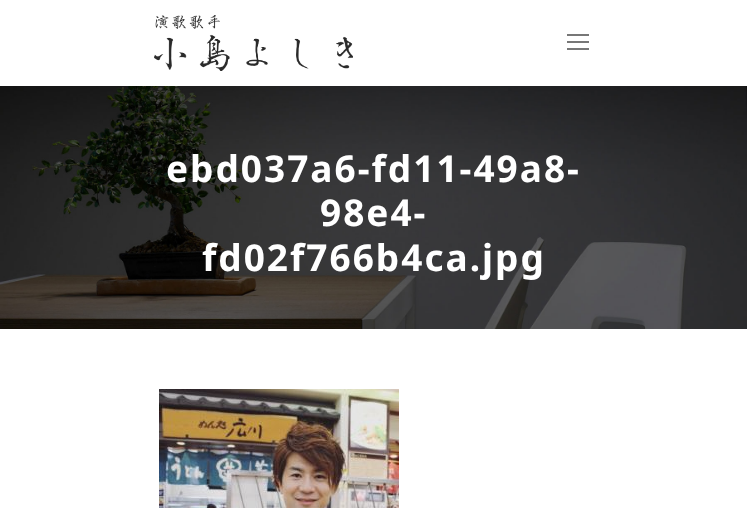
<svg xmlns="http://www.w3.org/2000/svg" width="747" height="508">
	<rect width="100%" height="100%" fill="#FFFFFF" />
	<image x="154" y="15" width="199" height="56" href="assets/img1.png" />
	<rect x="567" y="34" width="22" height="2" fill="#777777" />
	<rect x="567" y="41" width="22" height="2" fill="#777777" />
	<rect x="567" y="48" width="22" height="2" fill="#777777" />
	<image x="0" y="86" width="747" height="243" href="assets/img2.png" />
	<g font-family="Noto Sans" font-size="37" font-weight="700" letter-spacing="2" fill="#FFFFFF">
		<text x="166" y="182">ebd037a6-fd11-49a8-</text>
		<text x="320" y="226">98e4-</text>
		<text x="202" y="271">fd02f766b4ca.jpg</text>
	</g>
	<image x="159" y="389" width="240" height="119" href="assets/img3.png" />
</svg>
